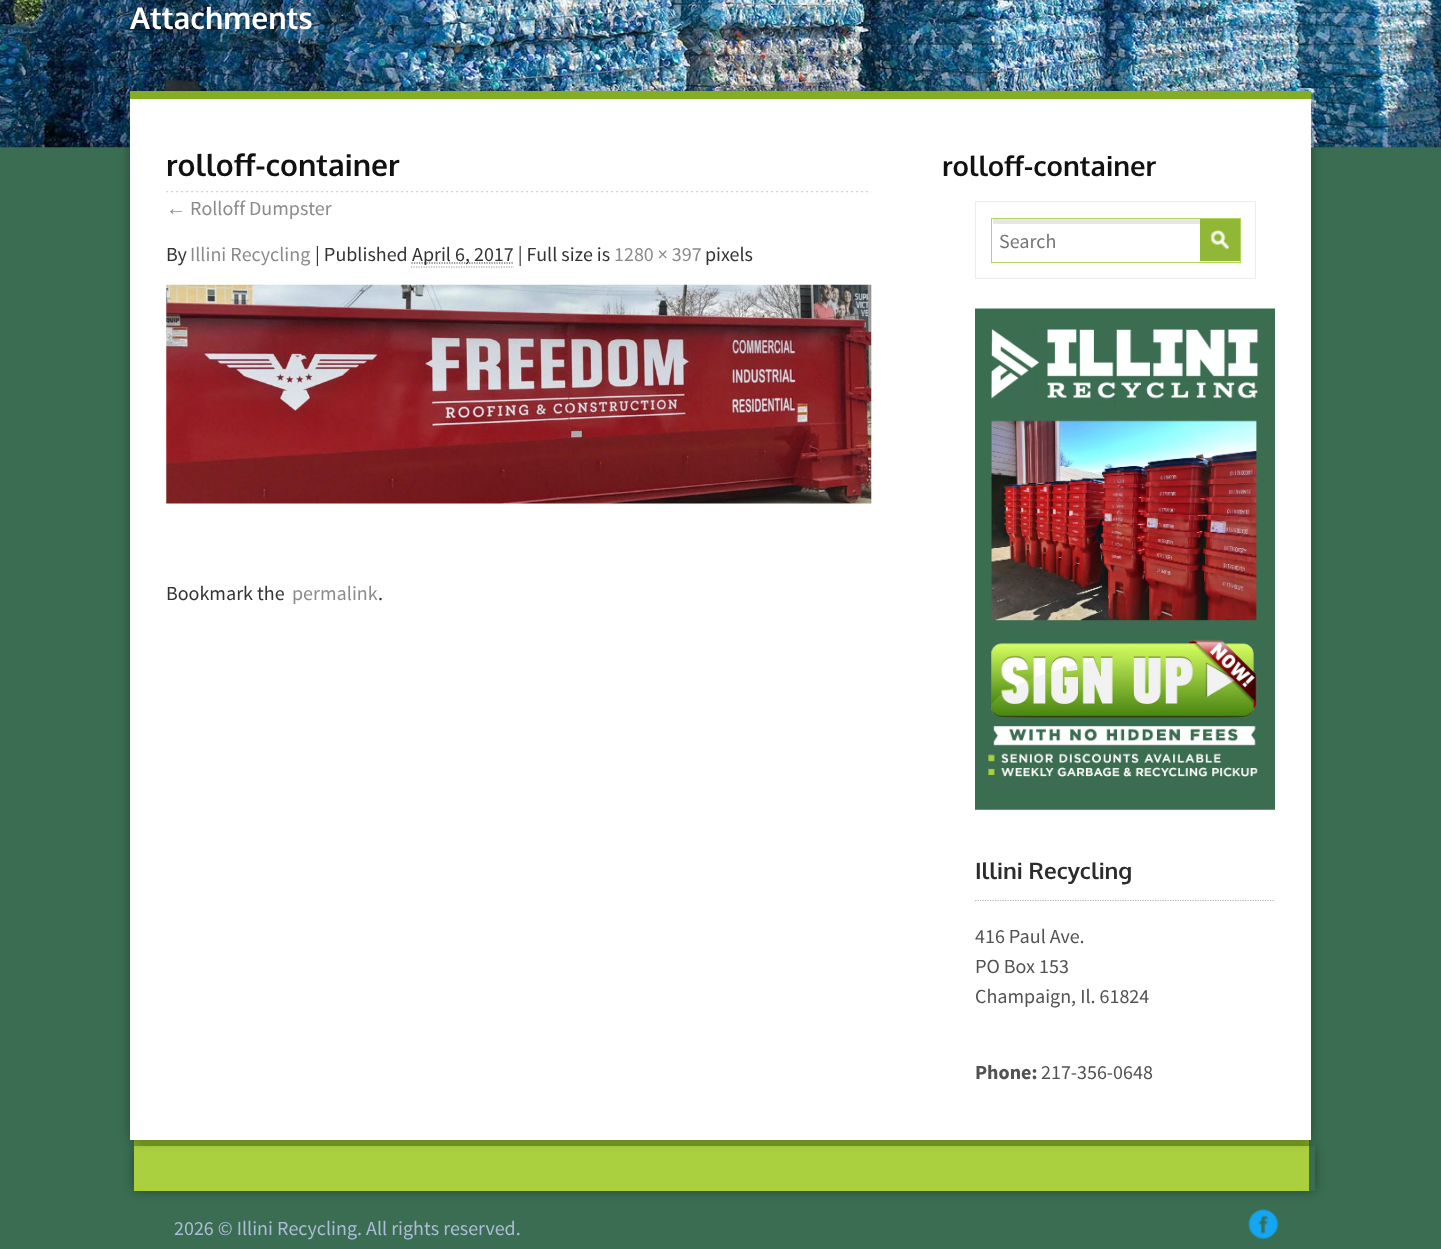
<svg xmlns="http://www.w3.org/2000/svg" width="1441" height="1249">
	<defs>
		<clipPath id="clip1"><path d="M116 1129H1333V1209H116ZM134 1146H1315V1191H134Z" clip-rule="evenodd" /></clipPath>
	</defs>
	<rect width="100%" height="100%" fill="#3A6D51" />
	<image x="0" y="0" width="1441" height="148" href="assets/img1.png" />
	<text x="130" y="29" font-family="Oxygen" font-size="30" font-weight="700" fill="#FFFFFF">Attachments</text>
	<rect x="134" y="1146" width="1175" height="45" fill="#AAD040" />
	<rect x="134" y="1140" width="1175" height="6" fill="#84AD24" />
	<rect x="131" y="93" width="1179" height="1046" fill="#000000" fill-opacity="0.4" filter="blur(6px)" />
	<g clip-path="url(#clip1)">
		<rect x="135" y="1148" width="1179" height="42" fill="#000000" fill-opacity="0.4" filter="blur(6px)" />
	</g>
	<rect x="130" y="99" width="1181" height="1041" fill="#FFFFFF" />
	<rect x="130" y="91" width="1181" height="8" fill="#84AD24" />
	<image x="166" y="191" width="706" height="2" href="assets/img2.png" />
	<text x="166" y="176" font-family="Oxygen" font-size="30" font-weight="700" fill="#111111">rolloff-container</text>
	<text x="166" y="215" font-family="Liberation Sans" font-size="20" fill="#8B8B8B">←</text>
	<text x="190" y="215" font-family="Source Sans Pro" font-size="20" fill="#8B8B8B">Rolloff Dumpster</text>
	<text x="166" y="261" font-family="Source Sans Pro" font-size="20" fill="#333333">By</text>
	<text x="190" y="261" font-family="Source Sans Pro" font-size="20" fill="#8B8B8B">Illini Recycling</text>
	<text x="315" y="261" font-family="Source Sans Pro" font-size="20" fill="#333333">| Published</text>
	<path d="M411.5 263H513.5" fill="none" stroke="#333333" stroke-width="1.2" stroke-dasharray="1.25 1.25" />
	<text x="412" y="261" font-family="Source Sans Pro" font-size="20" fill="#333333">April 6, 2017 | Full size is</text>
	<path d="M411 267H514" fill="none" stroke="#999999" stroke-width="1.2" stroke-dasharray="1.25 1.25" />
	<text x="614" y="261" font-family="Source Sans Pro" font-size="20" fill="#8B8B8B">1280 × 397</text>
	<text x="705" y="261" font-family="Source Sans Pro" font-size="20" fill="#333333">pixels</text>
	<image x="166" y="284" width="706" height="220" href="assets/img3.png" />
	<text x="166" y="600" font-family="Source Sans Pro" font-size="20" fill="#333333">Bookmark the</text>
	<text x="292" y="600" font-family="Source Sans Pro" font-size="20" fill="#8B8B8B">permalink</text>
	<text x="378" y="600" font-family="Source Sans Pro" font-size="20" fill="#333333">.</text>
	<text x="942" y="176" font-family="Oxygen" font-size="27.5" font-weight="700" fill="#111111">rolloff-container</text>
	<rect x="975.5" y="201.5" width="280" height="77" fill="none" stroke="#EDEDED" />
	<rect x="993" y="219" width="207" height="5" fill="#E6E6E6" />
	<rect x="991.5" y="218.5" width="249" height="44" fill="none" stroke="#B2D75B" />
	<text x="999" y="248" font-family="Source Sans Pro" font-size="20" fill="#757575">Search</text>
	<rect x="1200" y="219" width="40" height="42" fill="#91B737" />
	<image x="1210" y="229" width="20" height="21" href="assets/img4.png" />
	<image x="975" y="308" width="300" height="502" href="assets/img5.png" />
	<path d="M975 900.5H1275" fill="none" stroke="#B4B4B4" stroke-width="1.2" stroke-dasharray="1.25 1.25" />
	<text x="975" y="879" font-family="Oxygen" font-size="22.5" font-weight="700" fill="#2C2C2C">Illini Recycling</text>
	<g font-family="Source Sans Pro" font-size="20" fill="#525252">
		<text x="975" y="943">416 Paul Ave.</text>
		<text x="975" y="973">PO Box 153</text>
		<text x="975" y="1003">Champaign, Il. 61824</text>
	</g>
	<text x="975" y="1079" font-family="Source Sans Pro" font-size="20" font-weight="700" fill="#525252">Phone:</text>
	<text x="1041" y="1079" font-family="Source Sans Pro" font-size="20" fill="#525252">217-356-0648</text>
	<text x="174" y="1235" font-family="Source Sans Pro" font-size="20" fill="#AEBCD8">2026 © Illini Recycling. All rights reserved.</text>
	<image x="1248" y="1209" width="31" height="30" href="assets/img6.png" />
</svg>
